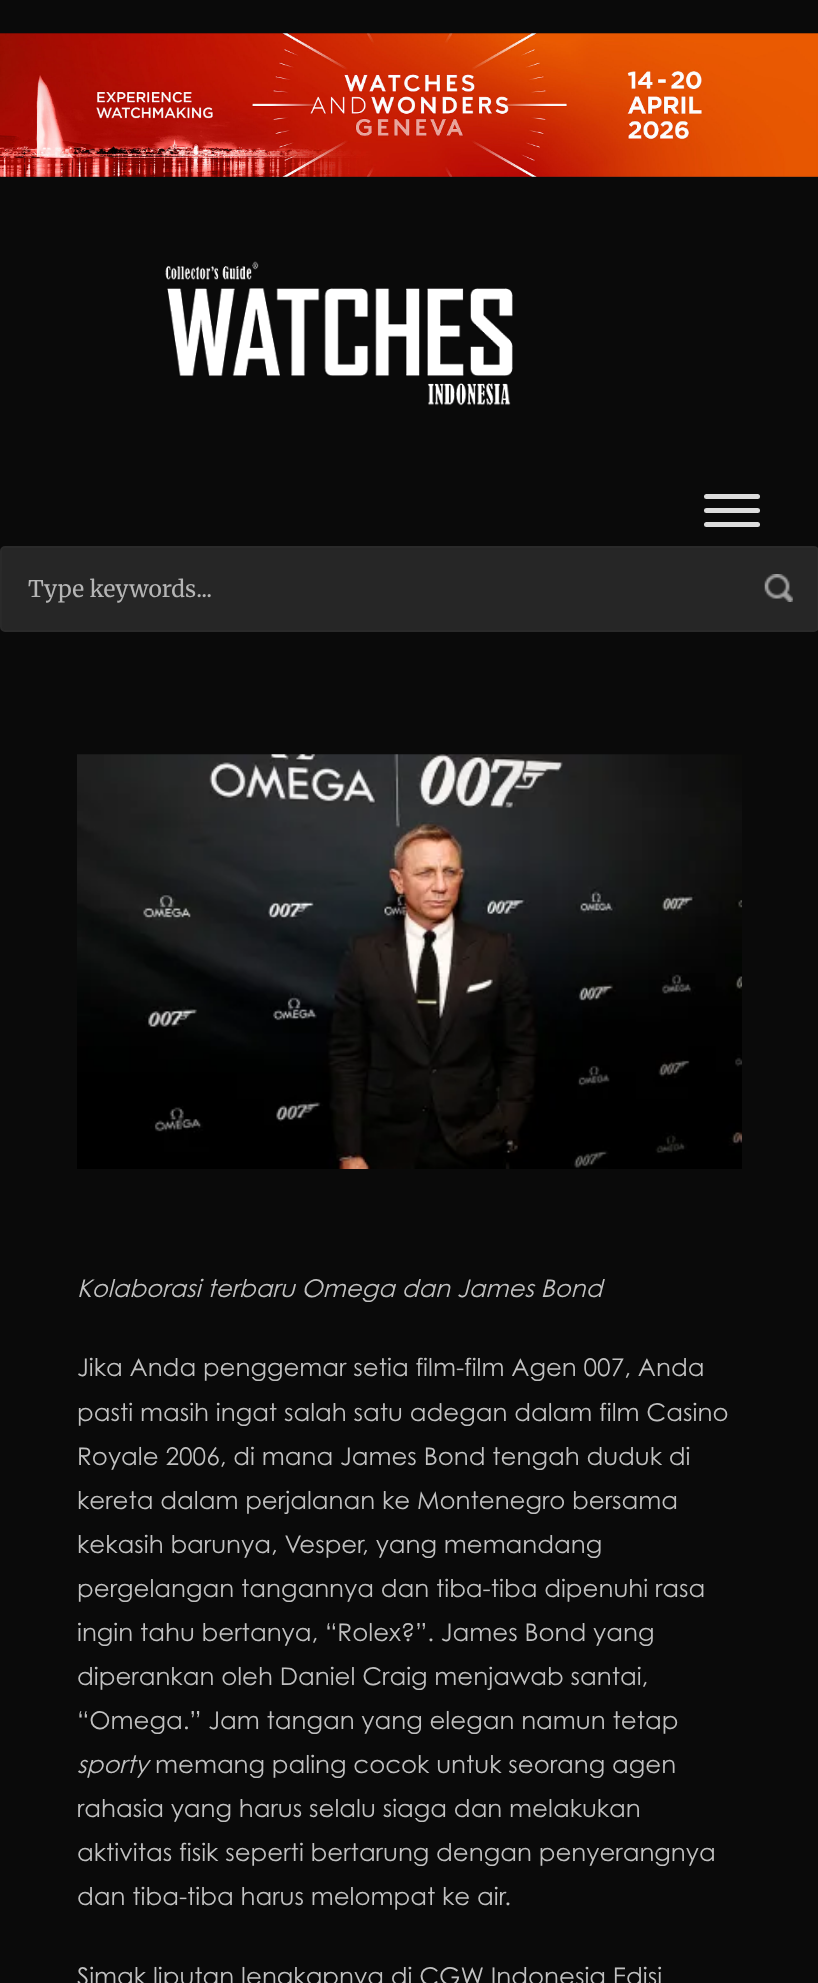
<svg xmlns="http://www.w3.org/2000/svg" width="818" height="1983">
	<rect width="100%" height="100%" fill="#0A0A0A" />
	<image x="0" y="33" width="818" height="144" href="assets/img1.png" />
	<image x="165" y="261" width="348" height="145" href="assets/img2.png" />
	<rect x="704" y="494" width="56" height="5" rx="2.5" fill="#DDDDDD" />
	<rect x="704" y="508" width="56" height="5" rx="2.5" fill="#DDDDDD" />
	<rect x="704" y="522" width="56" height="5" rx="2.5" fill="#DDDDDD" />
	<rect x="1" y="547" width="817" height="84" rx="4" fill="#262626" stroke="#2A2A2A" stroke-width="2" />
	<text x="28" y="597" font-family="Merriweather" font-size="22.75" fill="#B5B5B5">Type keywords...</text>
	<image x="764" y="574" width="29" height="28" href="assets/img3.png" />
	<image x="77" y="754" width="665" height="415" href="assets/img4.png" />
	<text x="77" y="1297" font-family="Century Gothic" font-size="24.5" font-style="italic" fill="#C1C1C1">Kolaborasi terbaru Omega dan James Bond</text>
	<g font-family="Century Gothic" font-size="24.5" fill="#C1C1C1">
		<text x="77" y="1376">Jika Anda penggemar setia film-film Agen 007, Anda</text>
		<text x="77" y="1421">pasti masih ingat salah satu adegan dalam film Casino</text>
		<text x="77" y="1465">Royale 2006, di mana James Bond tengah duduk di</text>
		<text x="77" y="1509">kereta dalam perjalanan ke Montenegro bersama</text>
		<text x="77" y="1553">kekasih barunya, Vesper, yang memandang</text>
		<text x="77" y="1597">pergelangan tangannya dan tiba-tiba dipenuhi rasa</text>
		<text x="77" y="1641">ingin tahu bertanya, “Rolex?”. James Bond yang</text>
		<text x="77" y="1685">diperankan oleh Daniel Craig menjawab santai,</text>
		<text x="77" y="1729">“Omega.” Jam tangan yang elegan namun tetap</text>
	</g>
	<text x="77" y="1773" font-family="Century Gothic" font-size="24.5" font-style="italic" fill="#C1C1C1">sporty</text>
	<g font-family="Century Gothic" font-size="24.5" fill="#C1C1C1">
		<text x="155" y="1773">memang paling cocok untuk seorang agen</text>
		<text x="77" y="1817">rahasia yang harus selalu siaga dan melakukan</text>
		<text x="77" y="1861">aktivitas fisik seperti bertarung dengan penyerangnya</text>
		<text x="77" y="1905">dan tiba-tiba harus melompat ke air.</text>
		<text x="77" y="1985">Simak liputan lengkapnya di CGW Indonesia Edisi</text>
	</g>
</svg>
